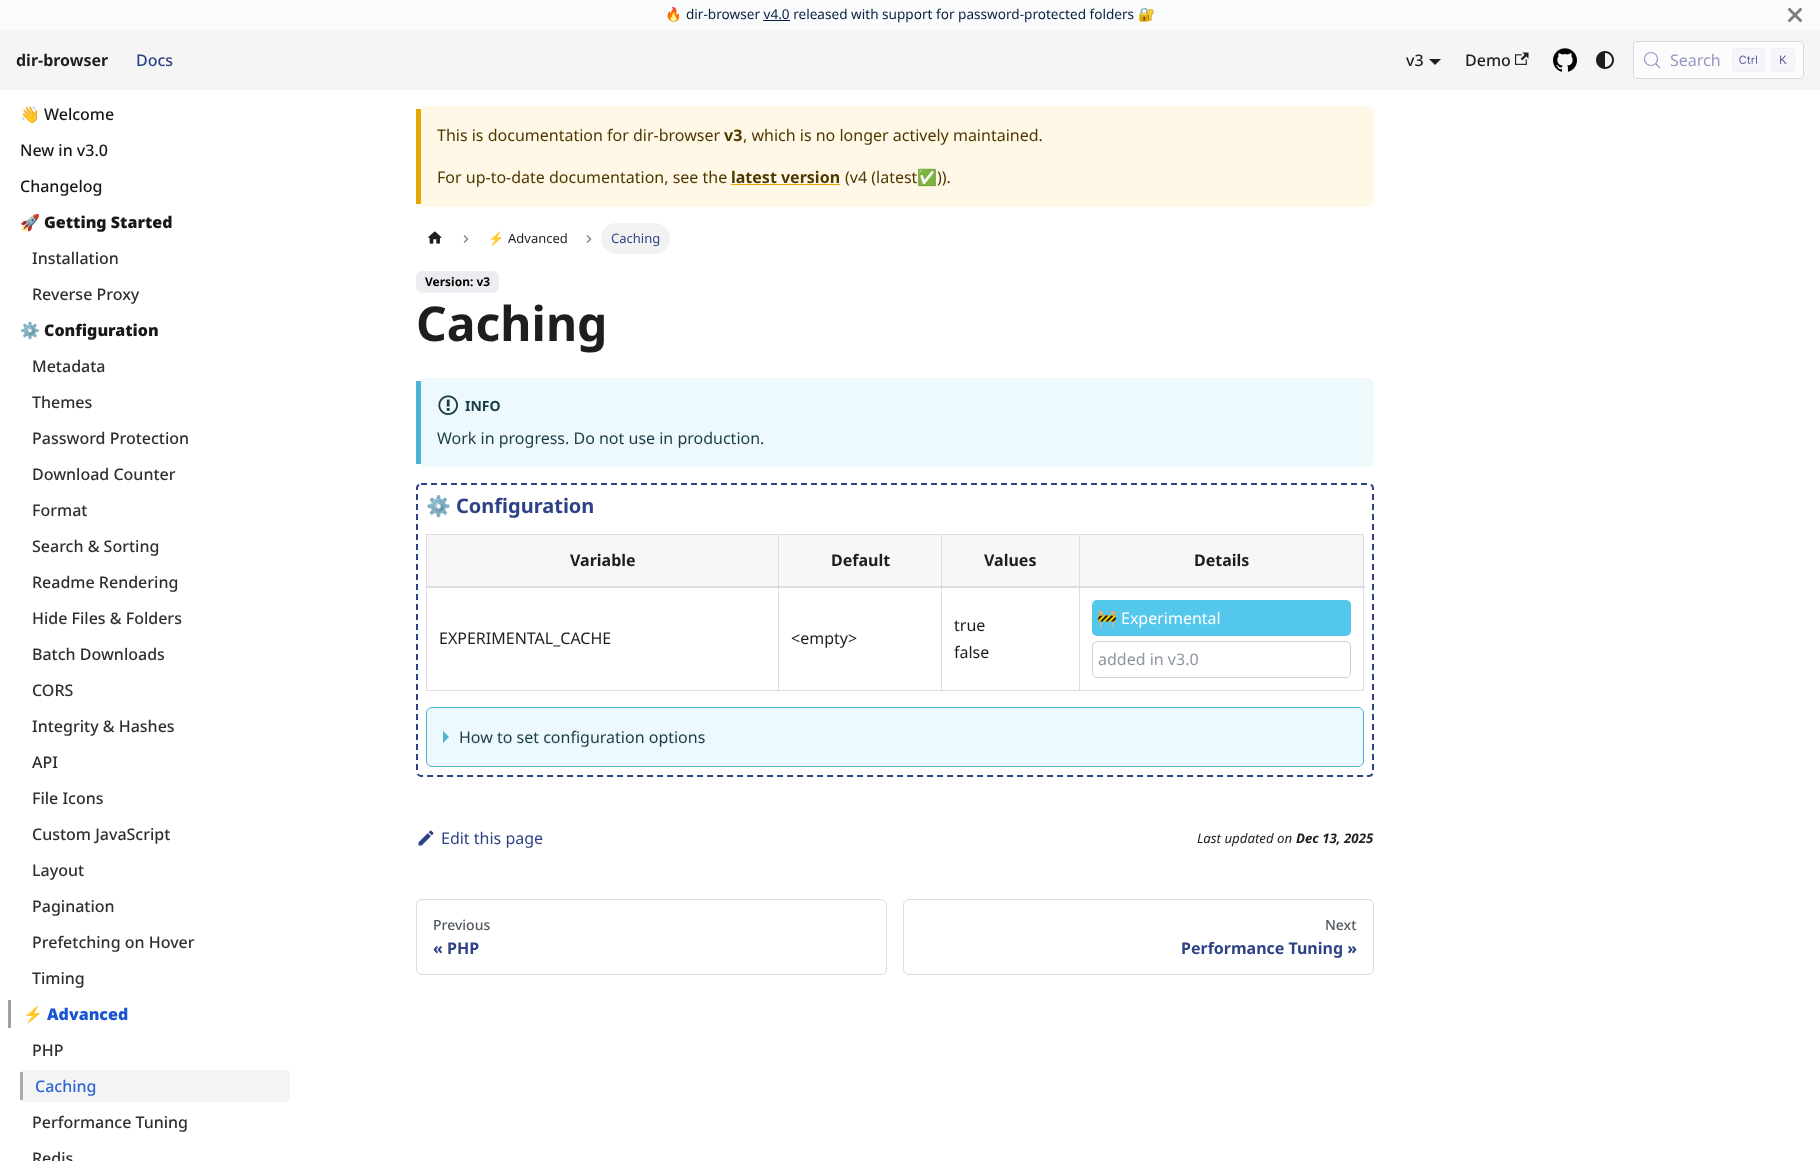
<svg xmlns="http://www.w3.org/2000/svg" width="1820" height="1161">
	<defs>
		<clipPath id="clip1"><rect x="1788" y="8" width="14" height="14" /></clipPath>
	</defs>
	<rect width="100%" height="100%" fill="#FFFFFF" />
	<rect x="0" y="0" width="1820" height="29" fill="#FAFBFC" />
	<rect x="0" y="29" width="1820" height="1" fill="#F5F6F7" />
	<text x="665" y="19" font-family="Noto Color Emoji" font-size="13.6" fill="#091E42">🔥</text>
	<text x="686" y="19" font-family="Noto Sans" font-size="13.6" fill="#091E42">dir-browser v4.0 released with support for password-protected folders</text>
	<text x="1138" y="19" font-family="Noto Color Emoji" font-size="13.6" fill="#091E42">🔐</text>
	<rect x="763" y="20" width="27" height="1" fill="#091E42" />
	<g clip-path="url(#clip1)">
		<path d="M1788.5 8.5L1801.5 21.5M1801.5 8.5L1788.5 21.5" fill="none" stroke="#7D7E7E" stroke-width="2.9" />
	</g>
	<rect x="0" y="30" width="1820" height="60" fill="#F5F5F5" />
	<text x="16" y="66" font-family="Noto Sans" font-size="16" font-weight="700" fill="#1C1E21">dir-browser</text>
	<text x="136" y="66" font-family="Noto Sans" font-size="16" font-weight="500" fill="#2E4385">Docs</text>
	<text x="1406" y="66" font-family="Noto Sans" font-size="16" font-weight="500" fill="#1C1E21">v3</text>
	<path d="M1429 59H1441L1435 65Z" fill="#1C1E21" />
	<text x="1465" y="66" font-family="Noto Sans" font-size="16" font-weight="500" fill="#1C1E21">Demo</text>
	<image x="1515" y="52" width="14" height="13" href="assets/img1.png" />
	<image x="1553" y="48" width="24" height="24" href="assets/img2.png" />
	<image x="1596" y="51" width="18" height="18" href="assets/img3.png" />
	<rect x="1633.5" y="41.5" width="170" height="37" rx="3.5" fill="#FCFCFC" stroke="#D6D6E7" />
	<circle cx="1651" cy="59" r="6.5" fill="none" stroke="#9698C3" stroke-width="1.2" />
	<path d="M1659.5 67.5L1656 64" fill="none" stroke="#9698C3" stroke-width="1.3" stroke-linecap="round" stroke-linejoin="round" />
	<text x="1670" y="66" font-family="Noto Sans" font-size="16" fill="#9698C3">Search</text>
	<rect x="1732.5" y="48.5" width="32" height="23" rx="3.5" fill="#F5F5FA" stroke="#EFEFF6" />
	<image x="1739" y="55" width="18" height="9" href="assets/img4.png" />
	<rect x="1771.5" y="48.5" width="23" height="23" rx="3.5" fill="#F5F5FA" stroke="#EFEFF6" />
	<image x="1780" y="55" width="7" height="9" href="assets/img5.png" />
	<text x="20" y="120" font-family="Noto Color Emoji" font-size="16" fill="#181818">👋</text>
	<g font-family="Noto Sans" font-size="16" font-weight="500" fill="#181818">
		<text x="44" y="120">Welcome</text>
		<text x="20" y="156">New in v3.0</text>
		<text x="20" y="192">Changelog</text>
	</g>
	<text x="20" y="228" font-family="Noto Color Emoji" font-size="16" font-weight="700" fill="#181818">🚀</text>
	<text x="44" y="228" font-family="Noto Sans" font-size="16" font-weight="900" fill="#181818">Getting Started</text>
	<g font-family="Noto Sans" font-size="16" font-weight="500" fill="#2F2F2F">
		<text x="32" y="264">Installation</text>
		<text x="32" y="300">Reverse Proxy</text>
	</g>
	<text x="20" y="336" font-family="Noto Color Emoji" font-size="16" font-weight="700" fill="#181818">⚙️</text>
	<text x="44" y="336" font-family="Noto Sans" font-size="16" font-weight="900" fill="#181818">Configuration</text>
	<g font-family="Noto Sans" font-size="16" font-weight="500" fill="#2F2F2F">
		<text x="32" y="372">Metadata</text>
		<text x="32" y="408">Themes</text>
		<text x="32" y="444">Password Protection</text>
		<text x="32" y="480">Download Counter</text>
		<text x="32" y="516">Format</text>
		<text x="32" y="552">Search &amp; Sorting</text>
		<text x="32" y="588">Readme Rendering</text>
		<text x="32" y="624">Hide Files &amp; Folders</text>
		<text x="32" y="660">Batch Downloads</text>
		<text x="32" y="696">CORS</text>
		<text x="32" y="732">Integrity &amp; Hashes</text>
		<text x="32" y="768">API</text>
		<text x="32" y="804">File Icons</text>
		<text x="32" y="840">Custom JavaScript</text>
		<text x="32" y="876">Layout</text>
		<text x="32" y="912">Pagination</text>
		<text x="32" y="948">Prefetching on Hover</text>
		<text x="32" y="984">Timing</text>
	</g>
	<rect x="8" y="1000" width="3" height="28" fill="#9F9F9F" />
	<text x="23" y="1020" font-family="Noto Color Emoji" font-size="16" font-weight="700" fill="#1755D3">⚡</text>
	<text x="47" y="1020" font-family="Noto Sans" font-size="16" font-weight="900" fill="#1755D3">Advanced</text>
	<text x="32" y="1056" font-family="Noto Sans" font-size="16" font-weight="500" fill="#2F2F2F">PHP</text>
	<rect x="20" y="1070" width="270" height="32" rx="4" fill="#F4F4F4" />
	<rect x="20" y="1072" width="3" height="28" fill="#A9A9A9" />
	<text x="35" y="1092" font-family="Noto Sans" font-size="16" font-weight="500" fill="#2E66D7">Caching</text>
	<g font-family="Noto Sans" font-size="16" font-weight="500" fill="#2F2F2F">
		<text x="32" y="1128">Performance Tuning</text>
		<text x="32" y="1164">Redis</text>
	</g>
	<path d="M422 106H1368C1371 106 1374 109 1374 112V201C1374 204 1371 207 1368 207H422C422 207 421 204 421 201V112C421 109 422 106 422 106Z" fill="#FFF8E6" />
	<rect x="416" y="109" width="5" height="95" fill="#E6A700" />
	<text x="437" y="141" font-family="Noto Sans" font-size="16" fill="#4D3800">This is documentation for dir-browser</text>
	<text x="724" y="141" font-family="Noto Sans" font-size="16" font-weight="700" fill="#4D3800">v3</text>
	<g font-family="Noto Sans" font-size="16" fill="#4D3800">
		<text x="743" y="141">, which is no longer actively maintained.</text>
		<text x="437" y="183">For up-to-date documentation, see the</text>
	</g>
	<text x="731" y="183" font-family="Noto Sans" font-size="16" font-weight="700" fill="#4D3800">latest version</text>
	<rect x="731" y="184" width="109" height="1" fill="#E6A700" />
	<text x="845" y="183" font-family="Noto Sans" font-size="16" fill="#4D3800">(v4 (latest</text>
	<text x="917" y="183" font-family="Noto Color Emoji" font-size="16" fill="#4D3800">✅</text>
	<text x="937" y="183" font-family="Noto Sans" font-size="16" fill="#4D3800">)).</text>
	<image x="428" y="231" width="14" height="13" href="assets/img6.png" />
	<image x="463" y="235" width="6" height="8" href="assets/img7.png" />
	<text x="488" y="243" font-family="Noto Color Emoji" font-size="13" fill="#1C1E21">⚡</text>
	<text x="508" y="243" font-family="Noto Sans" font-size="13" fill="#1C1E21">Advanced</text>
	<image x="586" y="235" width="6" height="8" href="assets/img7.png" />
	<rect x="601" y="223" width="69" height="31" rx="15.5" fill="#F2F2F2" />
	<text x="611" y="243" font-family="Noto Sans" font-size="13" fill="#2E4385">Caching</text>
	<rect x="416.5" y="271.5" width="82" height="21" rx="5.5" fill="#EBEDF0" stroke="#EBEDF0" />
	<text x="425" y="286" font-family="Noto Sans" font-size="12" font-weight="700" fill="#000000">Version: v3</text>
	<text x="416" y="341" font-family="Noto Sans" font-size="48" font-weight="700" fill="#1C1E21">Caching</text>
	<path d="M422 378H1368C1371 378 1374 381 1374 384V461C1374 464 1371 467 1368 467H422C422 467 421 464 421 461V384C421 381 422 378 422 378Z" fill="#EEF9FD" />
	<rect x="416" y="381" width="5" height="83" fill="#4CB3D4" />
	<image x="438" y="395" width="20" height="20" href="assets/img8.png" />
	<text x="465" y="411" font-family="Noto Sans" font-size="14" font-weight="700" fill="#193C47">INFO</text>
	<text x="437" y="444" font-family="Noto Sans" font-size="16" fill="#193C47">Work in progress. Do not use in production.</text>
	<path d="M421 484H1369C1371 484 1373 486 1373 488V772C1373 774 1371 776 1369 776H421C419 776 417 774 417 772V488C417 486 419 484 421 484Z" fill="none" stroke="#2E4385" stroke-width="2" stroke-dasharray="6 4" />
	<text x="426" y="513" font-family="Noto Color Emoji" font-size="20" font-weight="700" fill="#2E4385">⚙️</text>
	<text x="456" y="513" font-family="Noto Sans" font-size="20" font-weight="700" fill="#2E4385">Configuration</text>
	<rect x="427" y="535" width="936" height="51" fill="#F7F7F7" />
	<rect x="426" y="534" width="938" height="1" fill="#DADDE1" />
	<rect x="1363" y="534" width="1" height="157" fill="#DADDE1" />
	<rect x="1079" y="690" width="285" height="1" fill="#DADDE1" />
	<rect x="1079" y="534" width="1" height="157" fill="#DADDE1" />
	<rect x="941" y="690" width="139" height="1" fill="#DADDE1" />
	<rect x="941" y="534" width="1" height="157" fill="#DADDE1" />
	<rect x="778" y="690" width="164" height="1" fill="#DADDE1" />
	<rect x="778" y="534" width="1" height="157" fill="#DADDE1" />
	<rect x="426" y="690" width="353" height="1" fill="#DADDE1" />
	<rect x="426" y="534" width="1" height="157" fill="#DADDE1" />
	<rect x="426" y="586" width="939" height="2" fill="#DADDE1" />
	<g font-family="Noto Sans" font-size="16" font-weight="700" fill="#1C1E21">
		<text x="570" y="566">Variable</text>
		<text x="831" y="566">Default</text>
		<text x="984" y="566">Values</text>
		<text x="1194" y="566">Details</text>
	</g>
	<g font-family="Noto Sans" font-size="16" fill="#1C1E21">
		<text x="439" y="644">EXPERIMENTAL_CACHE</text>
		<text x="791" y="644">&lt;empty&gt;</text>
		<text x="954" y="631">true</text>
		<text x="954" y="658">false</text>
	</g>
	<rect x="1092" y="600" width="259" height="36" rx="5" fill="#54C7EC" />
	<text x="1097" y="624" font-family="Noto Color Emoji" font-size="16" fill="#FFFFFF">🚧</text>
	<text x="1121" y="624" font-family="Noto Sans" font-size="16" fill="#FFFFFF">Experimental</text>
	<rect x="1092.5" y="641.5" width="258" height="36" rx="4.5" fill="none" stroke="#CCD0D5" />
	<text x="1098" y="665" font-family="Noto Sans" font-size="16" fill="#8D949E">added in v3.0</text>
	<rect x="426.5" y="707.5" width="937" height="59" rx="5.5" fill="#EEF9FD" stroke="#4CB3D4" />
	<path d="M443 743V731L449 737Z" fill="#4CB3D4" />
	<text x="459" y="743" font-family="Noto Sans" font-size="16" fill="#193C47">How to set configuration options</text>
	<image x="418" y="830" width="16" height="16" href="assets/img9.png" />
	<text x="441" y="844" font-family="Noto Sans" font-size="16" fill="#2E4385">Edit this page</text>
	<text x="1197" y="843" font-family="Noto Sans" font-size="13.25" font-style="italic" fill="#1C1E21">Last updated on</text>
	<text x="1296" y="843" font-family="Noto Sans" font-size="13.25" font-weight="700" font-style="italic" fill="#1C1E21">Dec 13, 2025</text>
	<rect x="416.5" y="899.5" width="470" height="75" rx="5.5" fill="none" stroke="#DADDE1" />
	<text x="433" y="930" font-family="Noto Sans" font-size="14" font-weight="500" fill="#525860">Previous</text>
	<text x="433" y="954" font-family="Noto Sans" font-size="16" font-weight="700" fill="#2E4385">« PHP</text>
	<rect x="903.5" y="899.5" width="470" height="75" rx="5.5" fill="none" stroke="#DADDE1" />
	<text x="1325" y="930" font-family="Noto Sans" font-size="14" font-weight="500" fill="#525860">Next</text>
	<text x="1181" y="954" font-family="Noto Sans" font-size="16" font-weight="700" fill="#2E4385">Performance Tuning »</text>
</svg>
